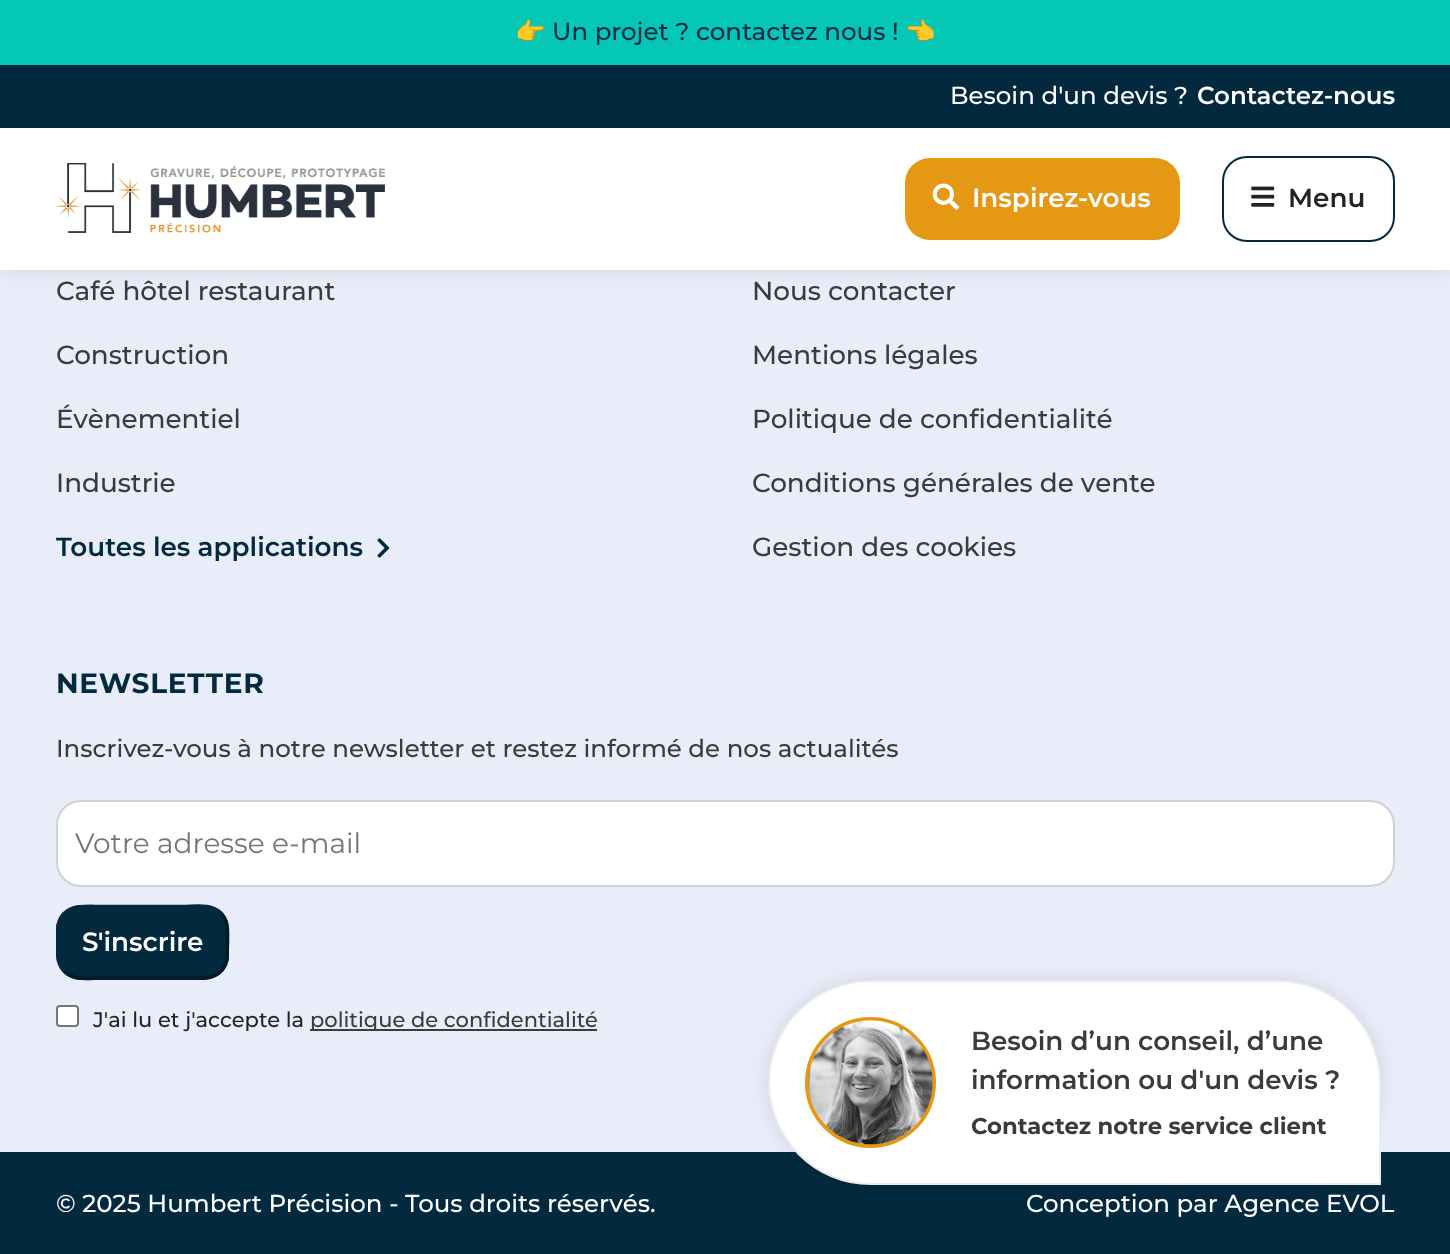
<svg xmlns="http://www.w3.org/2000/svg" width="1450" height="1254">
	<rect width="100%" height="100%" fill="#E9ECF9" />
	<rect x="0" y="0" width="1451" height="270" fill="#000000" fill-opacity="0.1" filter="blur(9px)" />
	<rect x="0" y="0" width="1450" height="65" fill="#04C7B5" />
	<text x="515" y="40" font-family="Noto Color Emoji" font-size="24.5" fill="#02293E">👉</text>
	<text x="552" y="40" font-family="Montserrat" font-size="24.5" font-weight="500" fill="#02293E">Un projet ? contactez nous !</text>
	<text x="905" y="40" font-family="Noto Color Emoji" font-size="24.5" fill="#02293E">👈</text>
	<rect x="0" y="65" width="1450" height="63" fill="#02293E" />
	<text x="950" y="104" font-family="Montserrat" font-size="24.5" font-weight="500" fill="#FFFFFF">Besoin d'un devis ?</text>
	<text x="1197" y="104" font-family="Montserrat" font-size="24.5" font-weight="600" fill="#FFFFFF">Contactez-nous</text>
	<rect x="0" y="128" width="1450" height="142" fill="#FFFFFF" />
	<image x="56" y="163" width="329" height="70" href="assets/img1.png" />
	<rect x="905" y="158" width="275" height="82" rx="25" fill="#E59813" />
	<image x="932" y="183" width="27" height="27" href="assets/img2.png" />
	<text x="972" y="207" font-family="Montserrat" font-size="26.25" font-weight="600" fill="#FFFFFF">Inspirez-vous</text>
	<rect x="1223" y="157" width="171" height="84" rx="24" fill="none" stroke="#02293E" stroke-width="2" />
	<image x="1251" y="186" width="24" height="21" href="assets/img3.png" />
	<text x="1288" y="207" font-family="Montserrat" font-size="26.25" font-weight="600" fill="#212529">Menu</text>
	<g font-family="Montserrat" font-size="26.25" font-weight="500" fill="#3B3B3B">
		<text x="56" y="300">Café hôtel restaurant</text>
		<text x="56" y="364">Construction</text>
		<text x="56" y="428">Évènementiel</text>
		<text x="56" y="492">Industrie</text>
	</g>
	<text x="56" y="556" font-family="Montserrat" font-size="26.25" font-weight="600" fill="#02293E">Toutes les applications</text>
	<image x="377" y="538" width="13" height="20" href="assets/img4.png" />
	<g font-family="Montserrat" font-size="26.25" font-weight="500" fill="#3B3B3B">
		<text x="752" y="300">Nous contacter</text>
		<text x="752" y="364">Mentions légales</text>
		<text x="752" y="428">Politique de confidentialité</text>
		<text x="752" y="492">Conditions générales de vente</text>
		<text x="752" y="556">Gestion des cookies</text>
	</g>
	<text x="56" y="693" font-family="Montserrat" font-size="28" font-weight="700" letter-spacing="0.75" fill="#02293E">NEWSLETTER</text>
	<text x="56" y="757" font-family="Montserrat" font-size="24.5" font-weight="500" fill="#3B3B3B">Inscrivez-vous à notre newsletter et restez informé de nos actualités</text>
	<rect x="57" y="801" width="1337" height="85" rx="24" fill="#FFFFFF" stroke="#D1D1D1" stroke-width="2" />
	<text x="75" y="853" font-family="Montserrat" font-size="28" fill="#757575">Votre adresse e-mail</text>
	<rect x="56" y="905" width="173" height="75" rx="25" fill="#02293E" />
	<path d="M221 913C229 921 227.5 932 227.5 942.5L227 960C222.5 981.5 200.5 978 184 978H101C89 978 74 981 64.5 971.5" fill="none" stroke="#011B29" stroke-width="3.5" />
	<path d="M64.5 971.5C56.5 963.5 58 953 58 942.5V925C62.5 903 84.5 906.5 101 906.5H184C196 906.5 211 903.5 221 913" fill="none" stroke="#02293E" stroke-width="3.5" />
	<text x="82" y="951" font-family="Montserrat" font-size="26.25" font-weight="600" fill="#FFFFFF">S'inscrire</text>
	<rect x="57" y="1006" width="21" height="20" rx="3" fill="#FFFFFF" stroke="#767676" stroke-width="2" />
	<text x="93" y="1027" font-family="Montserrat" font-size="21" font-weight="500" fill="#212529">J'ai lu et j'accepte la</text>
	<rect x="310" y="1029" width="287" height="2" fill="#3B3B3B" />
	<text x="310" y="1027" font-family="Montserrat" font-size="21" font-weight="500" fill="#3B3B3B">politique de confidentialité</text>
	<rect x="0" y="1152" width="1450" height="102" fill="#02293E" />
	<rect x="768" y="980" width="613" height="205" rx="102.5" fill="#000000" fill-opacity="0.1" filter="blur(9px)" />
	<path d="M870.5 981H1278.5C1334.5 981 1380 1026.5 1380 1082.5V1184H870.5C814.5 1184 769 1138.5 769 1082.5C769 1026.5 814.5 981 870.5 981Z" fill="#FFFFFF" stroke="#EBEBEB" stroke-width="2" />
	<circle cx="870.5" cy="1082.5" r="63.5" fill="none" stroke="#E59813" stroke-width="4" />
	<image x="808" y="1020" width="125" height="125" href="assets/img5.png" />
	<g font-family="Montserrat" font-size="26.25" font-weight="600" fill="#3B3B3B">
		<text x="971" y="1050">Besoin d’un conseil, d’une</text>
		<text x="971" y="1089">information ou d'un devis ?</text>
	</g>
	<text x="971" y="1134" font-family="Montserrat" font-size="22.75" font-weight="700" fill="#3B3B3B">Contactez notre service client</text>
	<g font-family="Montserrat" font-size="24.5" font-weight="500" fill="#FFFFFF">
		<text x="56" y="1212">© 2025 Humbert Précision - Tous droits réservés.</text>
		<text x="1026" y="1212">Conception par Agence EVOL</text>
	</g>
</svg>
